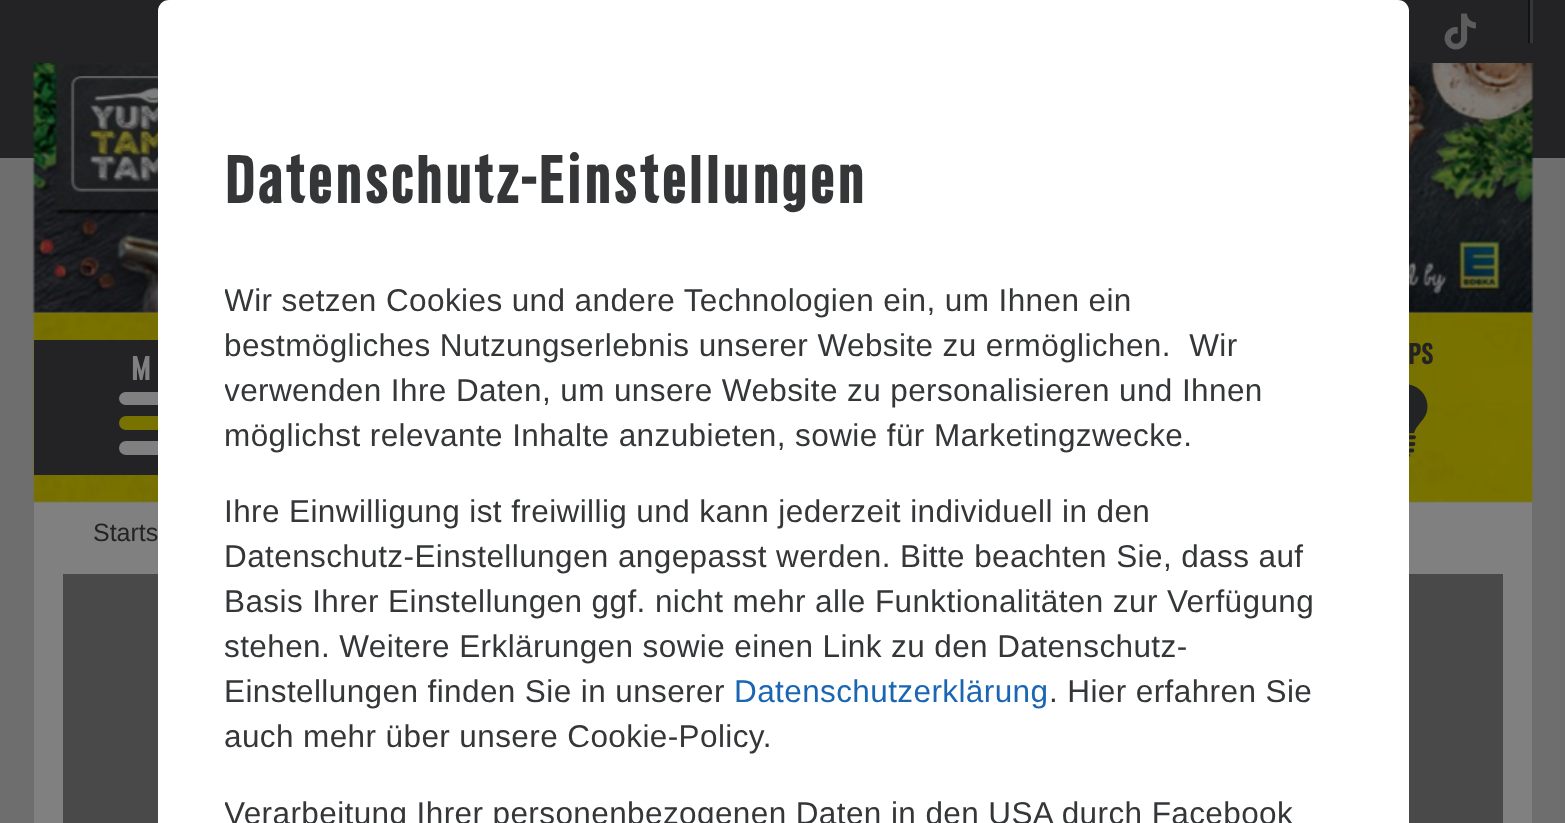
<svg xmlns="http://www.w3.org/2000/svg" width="1565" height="823">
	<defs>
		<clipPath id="clip1"><rect x="225" y="245" width="1116" height="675" /></clipPath>
	</defs>
	<rect width="100%" height="100%" fill="#6E6E6E" />
	<rect x="0" y="0" width="1565" height="158" fill="#232325" />
	<image x="32" y="63" width="1502" height="250" href="assets/img2.png" />
	<rect x="34" y="502" width="1498" height="321" fill="#808080" />
	<image x="33" y="312" width="1500" height="191" href="assets/img3.png" />
	<rect x="34" y="340" width="124" height="135" fill="#232325" />
	<rect x="119" y="416" width="113" height="14" rx="7" fill="#787201" />
	<rect x="119" y="392" width="113" height="13" rx="6.5" fill="#808080" />
	<rect x="119" y="441" width="113" height="14" rx="7" fill="#808080" />
	<rect x="63" y="574" width="1440" height="249" fill="#494949" />
	<rect x="158" y="0" width="1251" height="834" rx="11" fill="#FFFFFF" />
	<text x="224" y="203" font-family="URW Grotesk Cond" font-size="72" font-weight="700" letter-spacing="1.7" fill="#343638">Datenschutz-Einstellungen</text>
	<g clip-path="url(#clip1)">
		<text x="224" y="311" font-family="Liberation Sans" font-size="31.5" letter-spacing="0.4" fill="#343638">Wir setzen Cookies und andere Technologien ein, um Ihnen ein</text>
	</g>
	<text x="224" y="356" font-family="Liberation Sans" font-size="31.5" letter-spacing="0.4" fill="#343638" xml:space="preserve">bestmögliches Nutzungserlebnis unserer Website zu ermöglichen.  Wir</text>
	<g clip-path="url(#clip1)">
		<text x="224" y="401" font-family="Liberation Sans" font-size="31.5" letter-spacing="0.4" fill="#343638">verwenden Ihre Daten, um unsere Website zu personalisieren und Ihnen</text>
	</g>
	<g font-family="Liberation Sans" font-size="31.5" letter-spacing="0.4" fill="#343638">
		<text x="224" y="446">möglichst relevante Inhalte anzubieten, sowie für Marketingzwecke.</text>
		<text x="224" y="522">Ihre Einwilligung ist freiwillig und kann jederzeit individuell in den</text>
		<text x="224" y="567">Datenschutz-Einstellungen angepasst werden. Bitte beachten Sie, dass auf</text>
		<text x="224" y="612">Basis Ihrer Einstellungen ggf. nicht mehr alle Funktionalitäten zur Verfügung</text>
		<text x="224" y="657">stehen. Weitere Erklärungen sowie einen Link zu den Datenschutz-</text>
		<text x="224" y="702">Einstellungen finden Sie in unserer</text>
	</g>
	<text x="734" y="702" font-family="Liberation Sans" font-size="31.5" letter-spacing="0.4" fill="#1B66B3">Datenschutzerklärung</text>
	<g font-family="Liberation Sans" font-size="31.5" letter-spacing="0.4" fill="#343638">
		<text x="1049" y="702">. Hier erfahren Sie</text>
		<text x="224" y="747">auch mehr über unsere Cookie-Policy.</text>
	</g>
	<g clip-path="url(#clip1)">
		<text x="224" y="824" font-family="Liberation Sans" font-size="31.5" letter-spacing="0.4" fill="#343638">Verarbeitung Ihrer personenbezogenen Daten in den USA durch Facebook</text>
	</g>
	<image x="1444" y="13" width="32" height="37" href="assets/img1.png" />
	<rect x="1530" y="0" width="3" height="43" fill="#353637" />
	<rect x="1528" y="0" width="2" height="43" fill="#111212" />
	<text x="1408" y="364" font-family="URW Grotesk Cond" font-size="31.5" font-weight="700" fill="#232325">PS</text>
	<image x="1409" y="384" width="19" height="73" href="assets/img4.png" />
	<text x="131" y="380" font-family="URW Grotesk Cond" font-size="36" font-weight="700" letter-spacing="7" fill="#808080">M</text>
	<text x="93" y="541" font-family="Liberation Sans" font-size="25" fill="#232325">Starts</text>
</svg>
